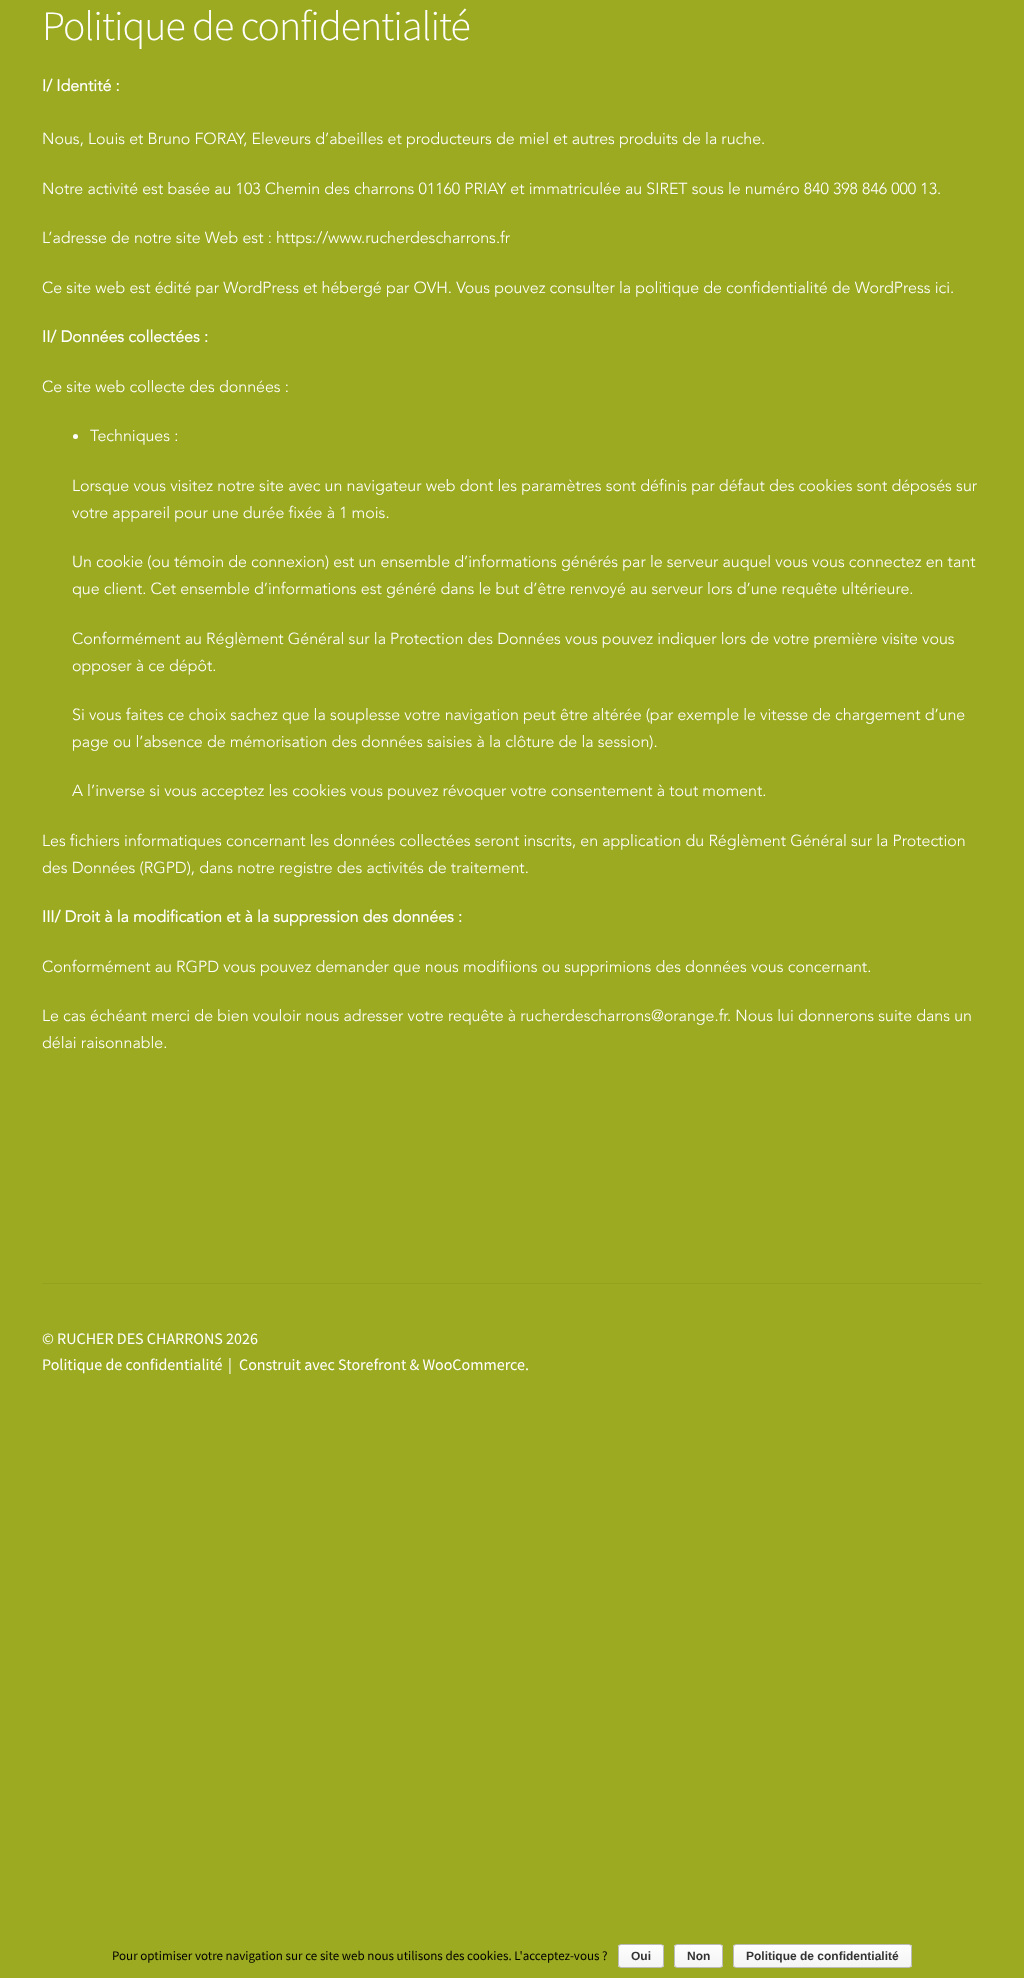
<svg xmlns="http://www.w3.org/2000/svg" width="1024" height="1978">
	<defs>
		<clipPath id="clip1"><rect x="618" y="1944" width="46" height="24" rx="3" /></clipPath>
		<linearGradient id="g1" gradientUnits="userSpaceOnUse" x1="641" y1="1945" x2="641" y2="1967"><stop offset="0" stop-color="#FEFEFE" /><stop offset="1" stop-color="#F4F4F4" /></linearGradient>
		<clipPath id="clip2"><rect x="674" y="1944" width="49" height="24" rx="3" /></clipPath>
		<linearGradient id="g2" gradientUnits="userSpaceOnUse" x1="699" y1="1945" x2="699" y2="1967"><stop offset="0" stop-color="#FEFEFE" /><stop offset="1" stop-color="#F4F4F4" /></linearGradient>
		<clipPath id="clip3"><rect x="733" y="1944" width="179" height="24" rx="3" /></clipPath>
		<linearGradient id="g3" gradientUnits="userSpaceOnUse" x1="823" y1="1945" x2="823" y2="1967"><stop offset="0" stop-color="#FEFEFE" /><stop offset="1" stop-color="#F4F4F4" /></linearGradient>
	</defs>
	<rect width="100%" height="100%" fill="#9BAA20" />
	<text x="42" y="40" font-family="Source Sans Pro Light" font-size="41.9" font-weight="300" letter-spacing="-1" fill="#FFFFFF">Politique de confidentialité</text>
	<text x="42" y="91" font-family="Avenir" font-size="16" font-weight="700" fill="#FFFFFF">I/ Identité :</text>
	<g font-family="Avenir" font-size="16" font-weight="300" fill="#FFFFFF">
		<text x="42" y="144">Nous, Louis et Bruno FORAY, Eleveurs d’abeilles et producteurs de miel et autres produits de la ruche.</text>
		<text x="42" y="194">Notre activité est basée au 103 Chemin des charrons 01160 PRIAY et immatriculée au SIRET sous le numéro 840 398 846 000 13.</text>
		<text x="42" y="243">L’adresse de notre site Web est : https://www.rucherdescharrons.fr</text>
		<text x="42" y="293">Ce site web est édité par WordPress et hébergé par OVH. Vous pouvez consulter la politique de confidentialité de WordPress ici.</text>
	</g>
	<text x="42" y="342" font-family="Avenir" font-size="16" font-weight="700" fill="#FFFFFF">II/ Données collectées :</text>
	<text x="42" y="392" font-family="Avenir" font-size="16" font-weight="300" fill="#FFFFFF">Ce site web collecte des données :</text>
	<circle cx="75.5" cy="436.5" r="2.5" fill="#FFFFFF" />
	<g font-family="Avenir" font-size="16" font-weight="300" fill="#FFFFFF">
		<text x="90" y="441">Techniques :</text>
		<text x="72" y="491">Lorsque vous visitez notre site avec un navigateur web dont les paramètres sont définis par défaut des cookies sont déposés sur</text>
		<text x="72" y="518">votre appareil pour une durée fixée à 1 mois.</text>
		<text x="72" y="567">Un cookie (ou témoin de connexion) est un ensemble d’informations générés par le serveur auquel vous vous connectez en tant</text>
		<text x="72" y="594">que client. Cet ensemble d’informations est généré dans le but d’être renvoyé au serveur lors d’une requête ultérieure.</text>
		<text x="72" y="644">Conformément au Réglèment Général sur la Protection des Données vous pouvez indiquer lors de votre première visite vous</text>
		<text x="72" y="671">opposer à ce dépôt.</text>
		<text x="72" y="720">Si vous faites ce choix sachez que la souplesse votre navigation peut être altérée (par exemple le vitesse de chargement d’une</text>
		<text x="72" y="747">page ou l’absence de mémorisation des données saisies à la clôture de la session).</text>
		<text x="72" y="796">A l’inverse si vous acceptez les cookies vous pouvez révoquer votre consentement à tout moment.</text>
		<text x="42" y="846">Les fichiers informatiques concernant les données collectées seront inscrits, en application du Réglèment Général sur la Protection</text>
		<text x="42" y="873">des Données (RGPD), dans notre registre des activités de traitement.</text>
	</g>
	<text x="42" y="922" font-family="Avenir" font-size="16" font-weight="700" fill="#FFFFFF">III/ Droit à la modification et à la suppression des données :</text>
	<g font-family="Avenir" font-size="16" font-weight="300" fill="#FFFFFF">
		<text x="42" y="972">Conformément au RGPD vous pouvez demander que nous modifiions ou supprimions des données vous concernant.</text>
		<text x="42" y="1021">Le cas échéant merci de bien vouloir nous adresser votre requête à rucherdescharrons@orange.fr</text>
		<text x="727" y="1021">. Nous lui donnerons suite dans un</text>
		<text x="42" y="1048">délai raisonnable.</text>
	</g>
	<rect x="42" y="1283" width="940" height="1" fill="#93A21E" />
	<g font-family="Source Sans Pro" font-size="16" fill="#FFFFFF">
		<text x="42" y="1344">© RUCHER DES CHARRONS 2026</text>
		<text x="42" y="1370">Politique de confidentialité</text>
		<text x="228" y="1370">|</text>
		<text x="239" y="1370">Construit avec Storefront &amp; WooCommerce.</text>
	</g>
	<text x="112" y="1960" font-family="Source Sans Pro" font-size="13" fill="#000000">Pour optimiser votre navigation sur ce site web nous utilisons des cookies. L'acceptez-vous ?</text>
	<g clip-path="url(#clip1)">
		<rect x="618" y="1945" width="46" height="22" fill="url(#g1)" />
	</g>
	<rect x="618.5" y="1944.5" width="45" height="23" rx="2.5" fill="none" stroke="#BBBBBB" />
	<text x="631" y="1960" font-family="Liberation Sans" font-size="12" font-weight="700" fill="#333333">Oui</text>
	<g clip-path="url(#clip2)">
		<rect x="674" y="1945" width="49" height="22" fill="url(#g2)" />
	</g>
	<rect x="674.5" y="1944.5" width="48" height="23" rx="2.5" fill="none" stroke="#BBBBBB" />
	<text x="687" y="1960" font-family="Liberation Sans" font-size="12" font-weight="700" fill="#333333">Non</text>
	<g clip-path="url(#clip3)">
		<rect x="733" y="1945" width="179" height="22" fill="url(#g3)" />
	</g>
	<rect x="733.5" y="1944.5" width="178" height="23" rx="2.5" fill="none" stroke="#BBBBBB" />
	<text x="746" y="1960" font-family="Liberation Sans" font-size="12" font-weight="700" fill="#333333">Politique de confidentialité</text>
</svg>
